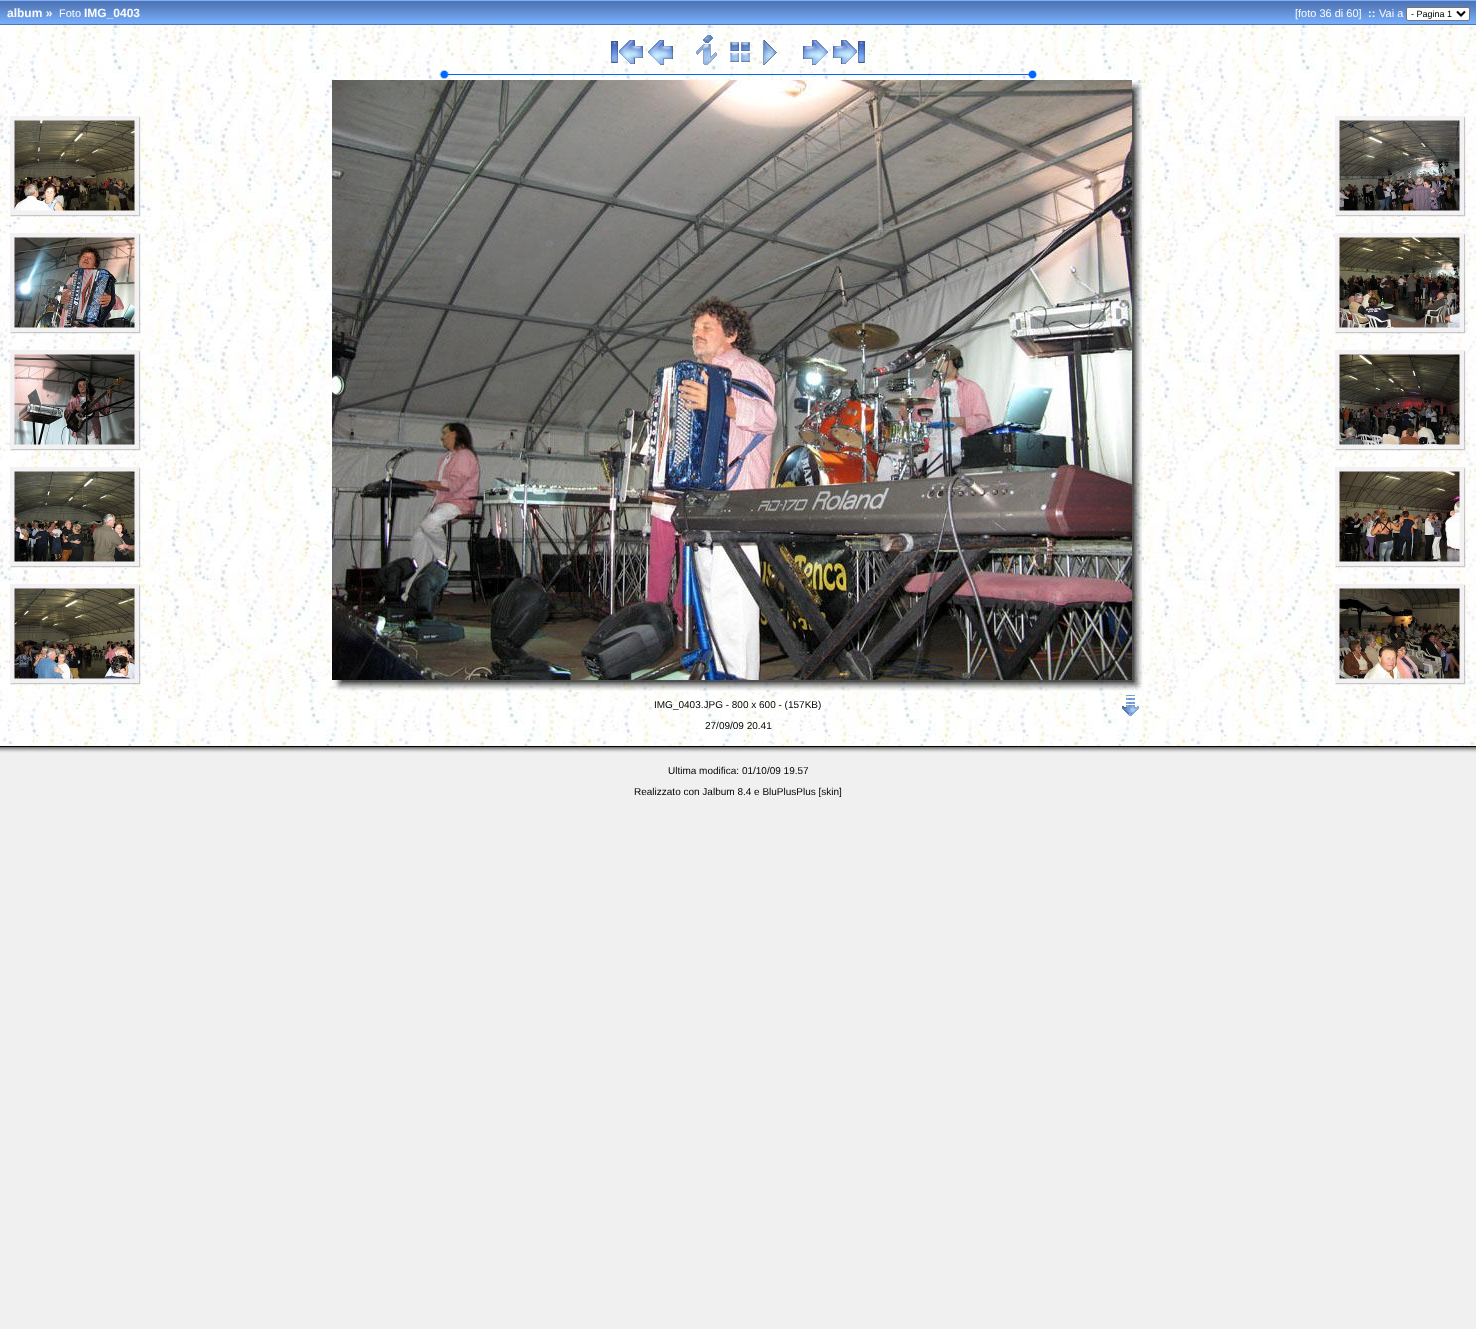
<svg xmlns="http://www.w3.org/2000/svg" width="1476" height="1329">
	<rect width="100%" height="100%" fill="#F0F0F0" />
	<image x="0" y="0" width="1476" height="25" href="assets/img1.png" />
	<text x="7" y="17" font-family="Liberation Sans" font-size="12" font-weight="700" fill="#FAFAFA">album »</text>
	<text x="59" y="17" font-family="Liberation Sans" font-size="11" fill="#FAFAFA">Foto</text>
	<text x="84" y="17" font-family="Liberation Sans" font-size="12" font-weight="700" fill="#FAFAFA">IMG_0403</text>
	<text x="1295" y="17" font-family="Liberation Sans" font-size="11" fill="#FAFAFA">[foto 36 di 60]</text>
	<text x="1368" y="17" font-family="Liberation Sans" font-size="11" font-weight="700" fill="#FAFAFA">::</text>
	<text x="1379" y="17" font-family="Liberation Sans" font-size="11" fill="#FAFAFA">Vai a</text>
	<rect x="1406.5" y="7.5" width="63" height="13" rx="1.5" fill="#FFFFFF" stroke="#767676" />
	<path d="M1457 11.5L1461 15.5L1465 11.5" fill="none" stroke="#000000" stroke-width="2" />
	<text x="1411" y="17" font-family="Liberation Sans" font-size="9" fill="#000000">- Pagina 1</text>
	<image x="0" y="25" width="1476" height="721" href="assets/img2.png" />
	<image x="611" y="40" width="32" height="24" href="assets/img3.png" />
	<image x="648" y="40" width="25" height="25" href="assets/img4.png" />
	<image x="696" y="35" width="21" height="30" href="assets/img5.png" />
	<image x="730" y="42" width="20" height="20" href="assets/img6.png" />
	<image x="763" y="40" width="14" height="25" href="assets/img7.png" />
	<image x="803" y="40" width="25" height="25" href="assets/img8.png" />
	<image x="833" y="40" width="32" height="24" href="assets/img9.png" />
	<image x="439" y="70" width="598" height="9" href="assets/img10.png" />
	<image x="10" y="116" width="131" height="101" href="assets/img11.png" />
	<image x="10" y="233" width="131" height="101" href="assets/img12.png" />
	<image x="10" y="350" width="131" height="101" href="assets/img13.png" />
	<image x="10" y="467" width="131" height="101" href="assets/img14.png" />
	<image x="10" y="584" width="131" height="101" href="assets/img15.png" />
	<image x="1335" y="116" width="131" height="101" href="assets/img16.png" />
	<image x="1335" y="233" width="131" height="101" href="assets/img17.png" />
	<image x="1335" y="350" width="131" height="101" href="assets/img18.png" />
	<image x="1335" y="467" width="131" height="101" href="assets/img19.png" />
	<image x="1335" y="584" width="131" height="101" href="assets/img20.png" />
	<image x="332" y="80" width="812" height="612" href="assets/img21.png" />
	<text x="654" y="708" font-family="Liberation Sans" font-size="10" fill="#000000">IMG_0403.JPG - 800 x 600 - (157KB)</text>
	<image x="1122" y="695" width="17" height="21" href="assets/img22.png" />
	<text x="705" y="729" font-family="Liberation Sans" font-size="10" fill="#000000">27/09/09 20.41</text>
	<rect x="0" y="746" width="1476" height="1" fill="#000000" />
	<rect x="0" y="747" width="1476" height="1" fill="#787878" />
	<rect x="0" y="748" width="1476" height="1" fill="#969696" />
	<rect x="0" y="749" width="1476" height="1" fill="#B4B4B4" />
	<rect x="0" y="750" width="1476" height="1" fill="#CCCCCC" />
	<rect x="0" y="751" width="1476" height="1" fill="#DEDEDE" />
	<rect x="0" y="752" width="1476" height="1" fill="#EBEBEB" />
	<g font-family="Liberation Sans" font-size="10" fill="#000000">
		<text x="668" y="774">Ultima modifica: 01/10/09 19.57</text>
		<text x="634" y="795">Realizzato con Jalbum 8.4 e BluPlusPlus [skin]</text>
	</g>
</svg>
